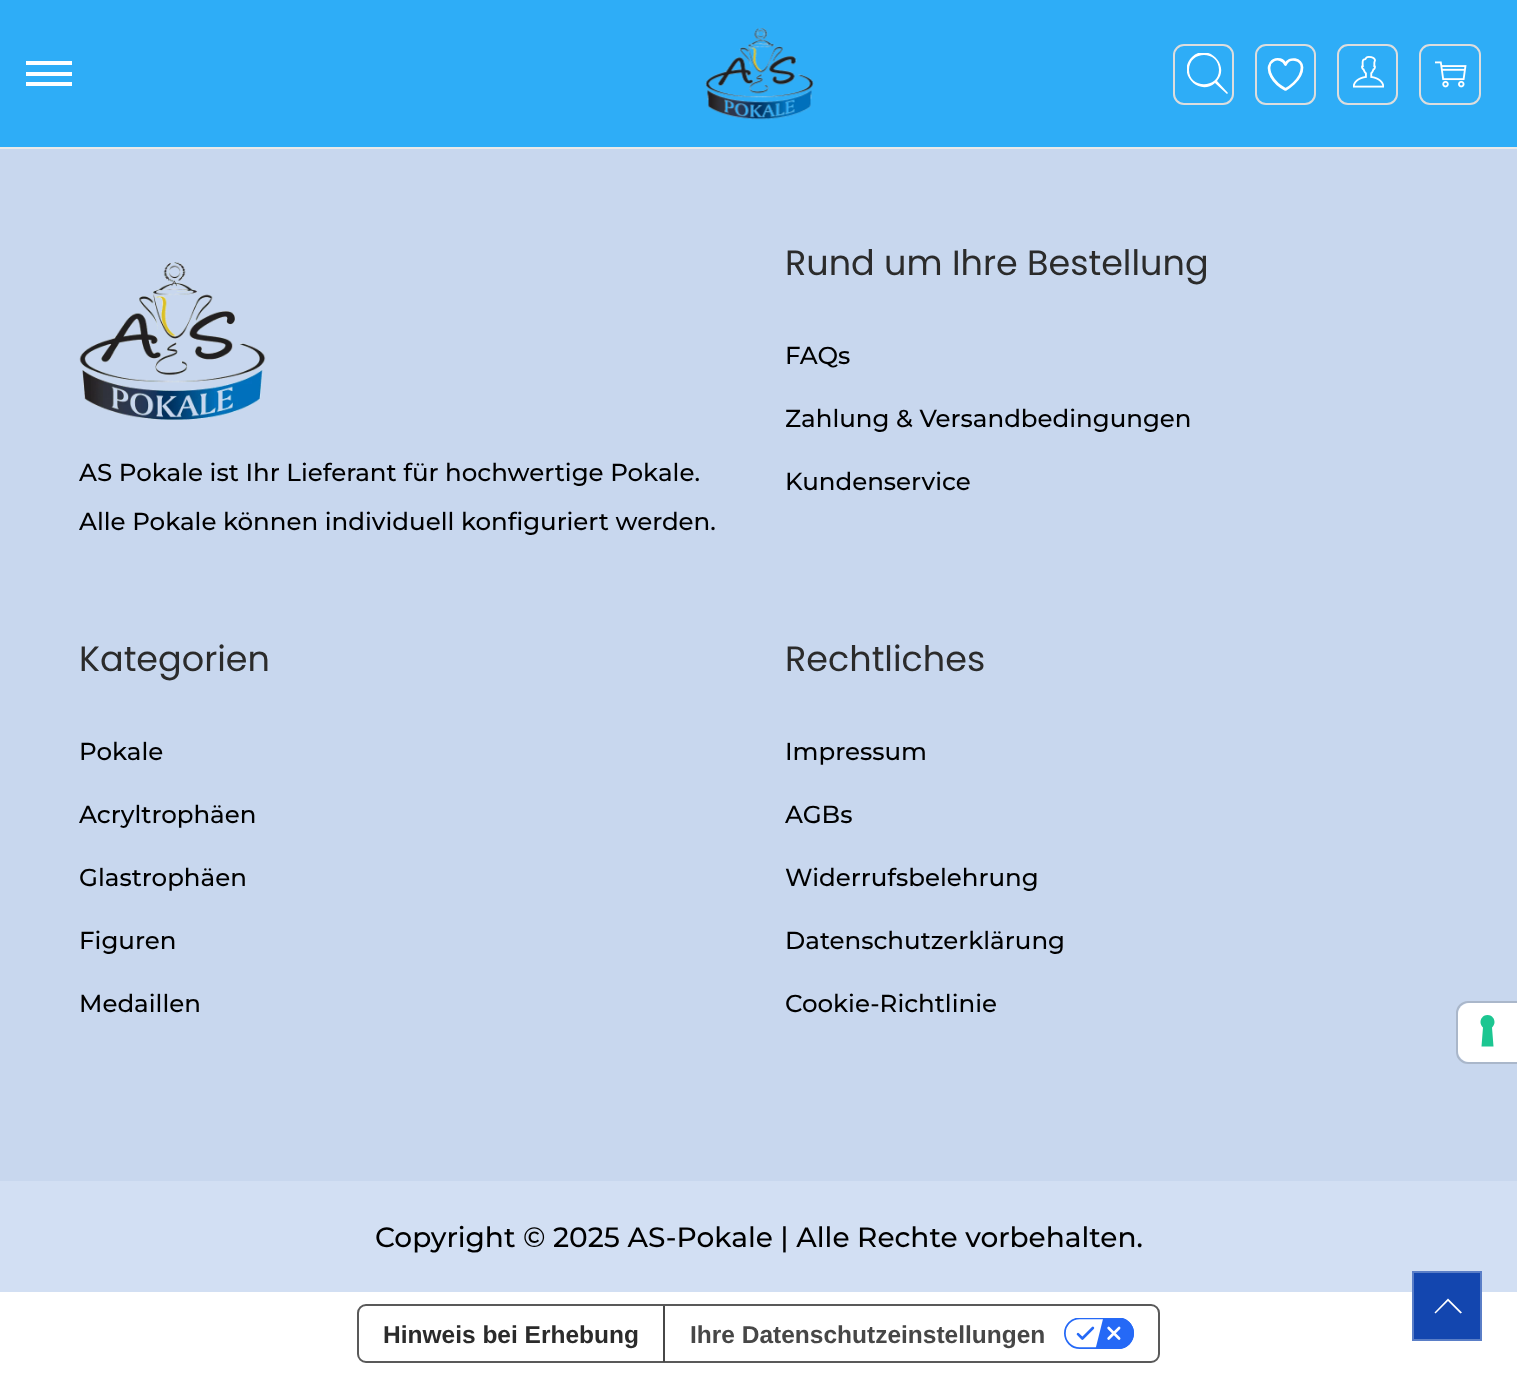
<svg xmlns="http://www.w3.org/2000/svg" width="1517" height="1374">
	<defs>
		<clipPath id="clip1"><rect x="1187" y="53" width="42" height="42" /></clipPath>
	</defs>
	<rect width="100%" height="100%" fill="#FFFFFF" />
	<rect x="0" y="147" width="1517" height="2" fill="#EAEAEA" />
	<rect x="0" y="0" width="1517" height="147" fill="#2EADF7" />
	<rect x="26" y="72" width="46" height="4" fill="#FFFFFF" />
	<rect x="26" y="61" width="46" height="4" fill="#FFFFFF" />
	<rect x="26" y="82" width="46" height="4" fill="#FFFFFF" />
	<image x="705" y="28" width="109" height="92" href="assets/img1.png" />
	<rect x="1174" y="45" width="59" height="59" rx="10" fill="none" stroke="#DDDDDD" stroke-width="2" />
	<g clip-path="url(#clip1)">
		<path d="M1228 93L1217 81C1231 65 1207 42 1192 57C1176 73 1199 97 1215 83L1227 94ZM1189 70C1189 50 1219 50 1219 70C1219 89 1189 89 1189 70Z" fill="#FFFFFF" />
	</g>
	<rect x="1256" y="45" width="59" height="59" rx="10" fill="none" stroke="#DDDDDD" stroke-width="2" />
	<path d="M1302 67.5C1302 58.5 1289 56.5 1285.5 64.5C1281 54 1262.5 60 1271.5 76.5C1274.5 82 1280 86.5 1285.5 89.5C1285.5 89.5 1302 80.5 1302 67.5Z" fill="none" stroke="#FFFFFF" stroke-width="2.7" stroke-linecap="round" stroke-linejoin="round" />
	<rect x="1338" y="45" width="59" height="59" rx="10" fill="none" stroke="#DDDDDD" stroke-width="2" />
	<image x="1353" y="56" width="31" height="32" href="assets/img2.png" />
	<rect x="1420" y="45" width="60" height="59" rx="10" fill="none" stroke="#DDDDDD" stroke-width="2" />
	<image x="1435" y="61" width="32" height="27" href="assets/img3.png" />
	<rect x="0" y="149" width="1517" height="1032" fill="#C8D7EE" />
	<text x="785" y="275" font-family="Poppins" font-size="35" fill="#2B2B2B">Rund um Ihre Bestellung</text>
	<g font-family="Montserrat" font-size="24.5" font-weight="500" fill="#000000">
		<text x="785" y="364">FAQs</text>
		<text x="785" y="427">Zahlung &amp; Versandbedingungen</text>
		<text x="785" y="490">Kundenservice</text>
	</g>
	<image x="79" y="262" width="187" height="158" href="assets/img4.png" />
	<g font-family="Montserrat" font-size="24.5" font-weight="500" fill="#000000">
		<text x="79" y="481">AS Pokale ist Ihr Lieferant für hochwertige Pokale.</text>
		<text x="79" y="530">Alle Pokale können individuell konfiguriert werden.</text>
	</g>
	<text x="79" y="671" font-family="Poppins" font-size="35" fill="#2B2B2B">Kategorien</text>
	<g font-family="Montserrat" font-size="24.5" font-weight="500" fill="#000000">
		<text x="79" y="760">Pokale</text>
		<text x="79" y="823">Acryltrophäen</text>
		<text x="79" y="886">Glastrophäen</text>
		<text x="79" y="949">Figuren</text>
		<text x="79" y="1012">Medaillen</text>
	</g>
	<text x="785" y="671" font-family="Poppins" font-size="35" fill="#2B2B2B">Rechtliches</text>
	<g font-family="Montserrat" font-size="24.5" font-weight="500" fill="#000000">
		<text x="785" y="760">Impressum</text>
		<text x="785" y="823">AGBs</text>
		<text x="785" y="886">Widerrufsbelehrung</text>
		<text x="785" y="949">Datenschutzerklärung</text>
		<text x="785" y="1012">Cookie-Richtlinie</text>
	</g>
	<rect x="0" y="1181" width="1517" height="111" fill="#D2DFF3" />
	<text x="375" y="1247" font-family="Montserrat" font-size="28" font-weight="500" fill="#000000">Copyright © 2025 AS-Pokale | Alle Rechte vorbehalten.</text>
	<path d="M1468 1002H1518V1063H1468C1462 1063 1457 1058 1457 1052V1013C1457 1007 1462 1002 1468 1002Z" fill="none" stroke="#AAB7CA" stroke-width="2" />
	<path d="M1469 1003H1517V1062H1469C1463 1062 1458 1057 1458 1051V1014C1458 1008 1463 1003 1469 1003Z" fill="#FFFFFF" />
	<path d="M1487.5 1015C1494 1015 1497 1023 1492 1027.5L1493.5 1046.5H1481.5L1483 1027.5C1478 1023 1481 1015 1487.5 1015Z" fill="#1CC691" fill-rule="evenodd" />
	<rect x="358" y="1305" width="801" height="57" rx="8" fill="none" stroke="#595959" stroke-width="2" />
	<text x="383" y="1343" font-family="Liberation Sans" font-size="24.5" font-weight="700" fill="#2B2B2B">Hinweis bei Erhebung</text>
	<rect x="663" y="1306" width="2" height="56" fill="#474747" />
	<text x="690" y="1343" font-family="Liberation Sans" font-size="24.5" font-weight="700" fill="#474747">Ihre Datenschutzeinstellungen</text>
	<image x="1064" y="1318" width="70" height="31" href="assets/img5.png" />
	<rect x="1413" y="1272" width="68" height="68" fill="#1346AF" stroke="#5A7EC7" stroke-width="2" />
	<path d="M1462 1312.5L1460.5 1313.5L1448 1301L1435.5 1313.5L1434.5 1312.5L1448 1298.5Z" fill="#FFFFFF" />
</svg>
